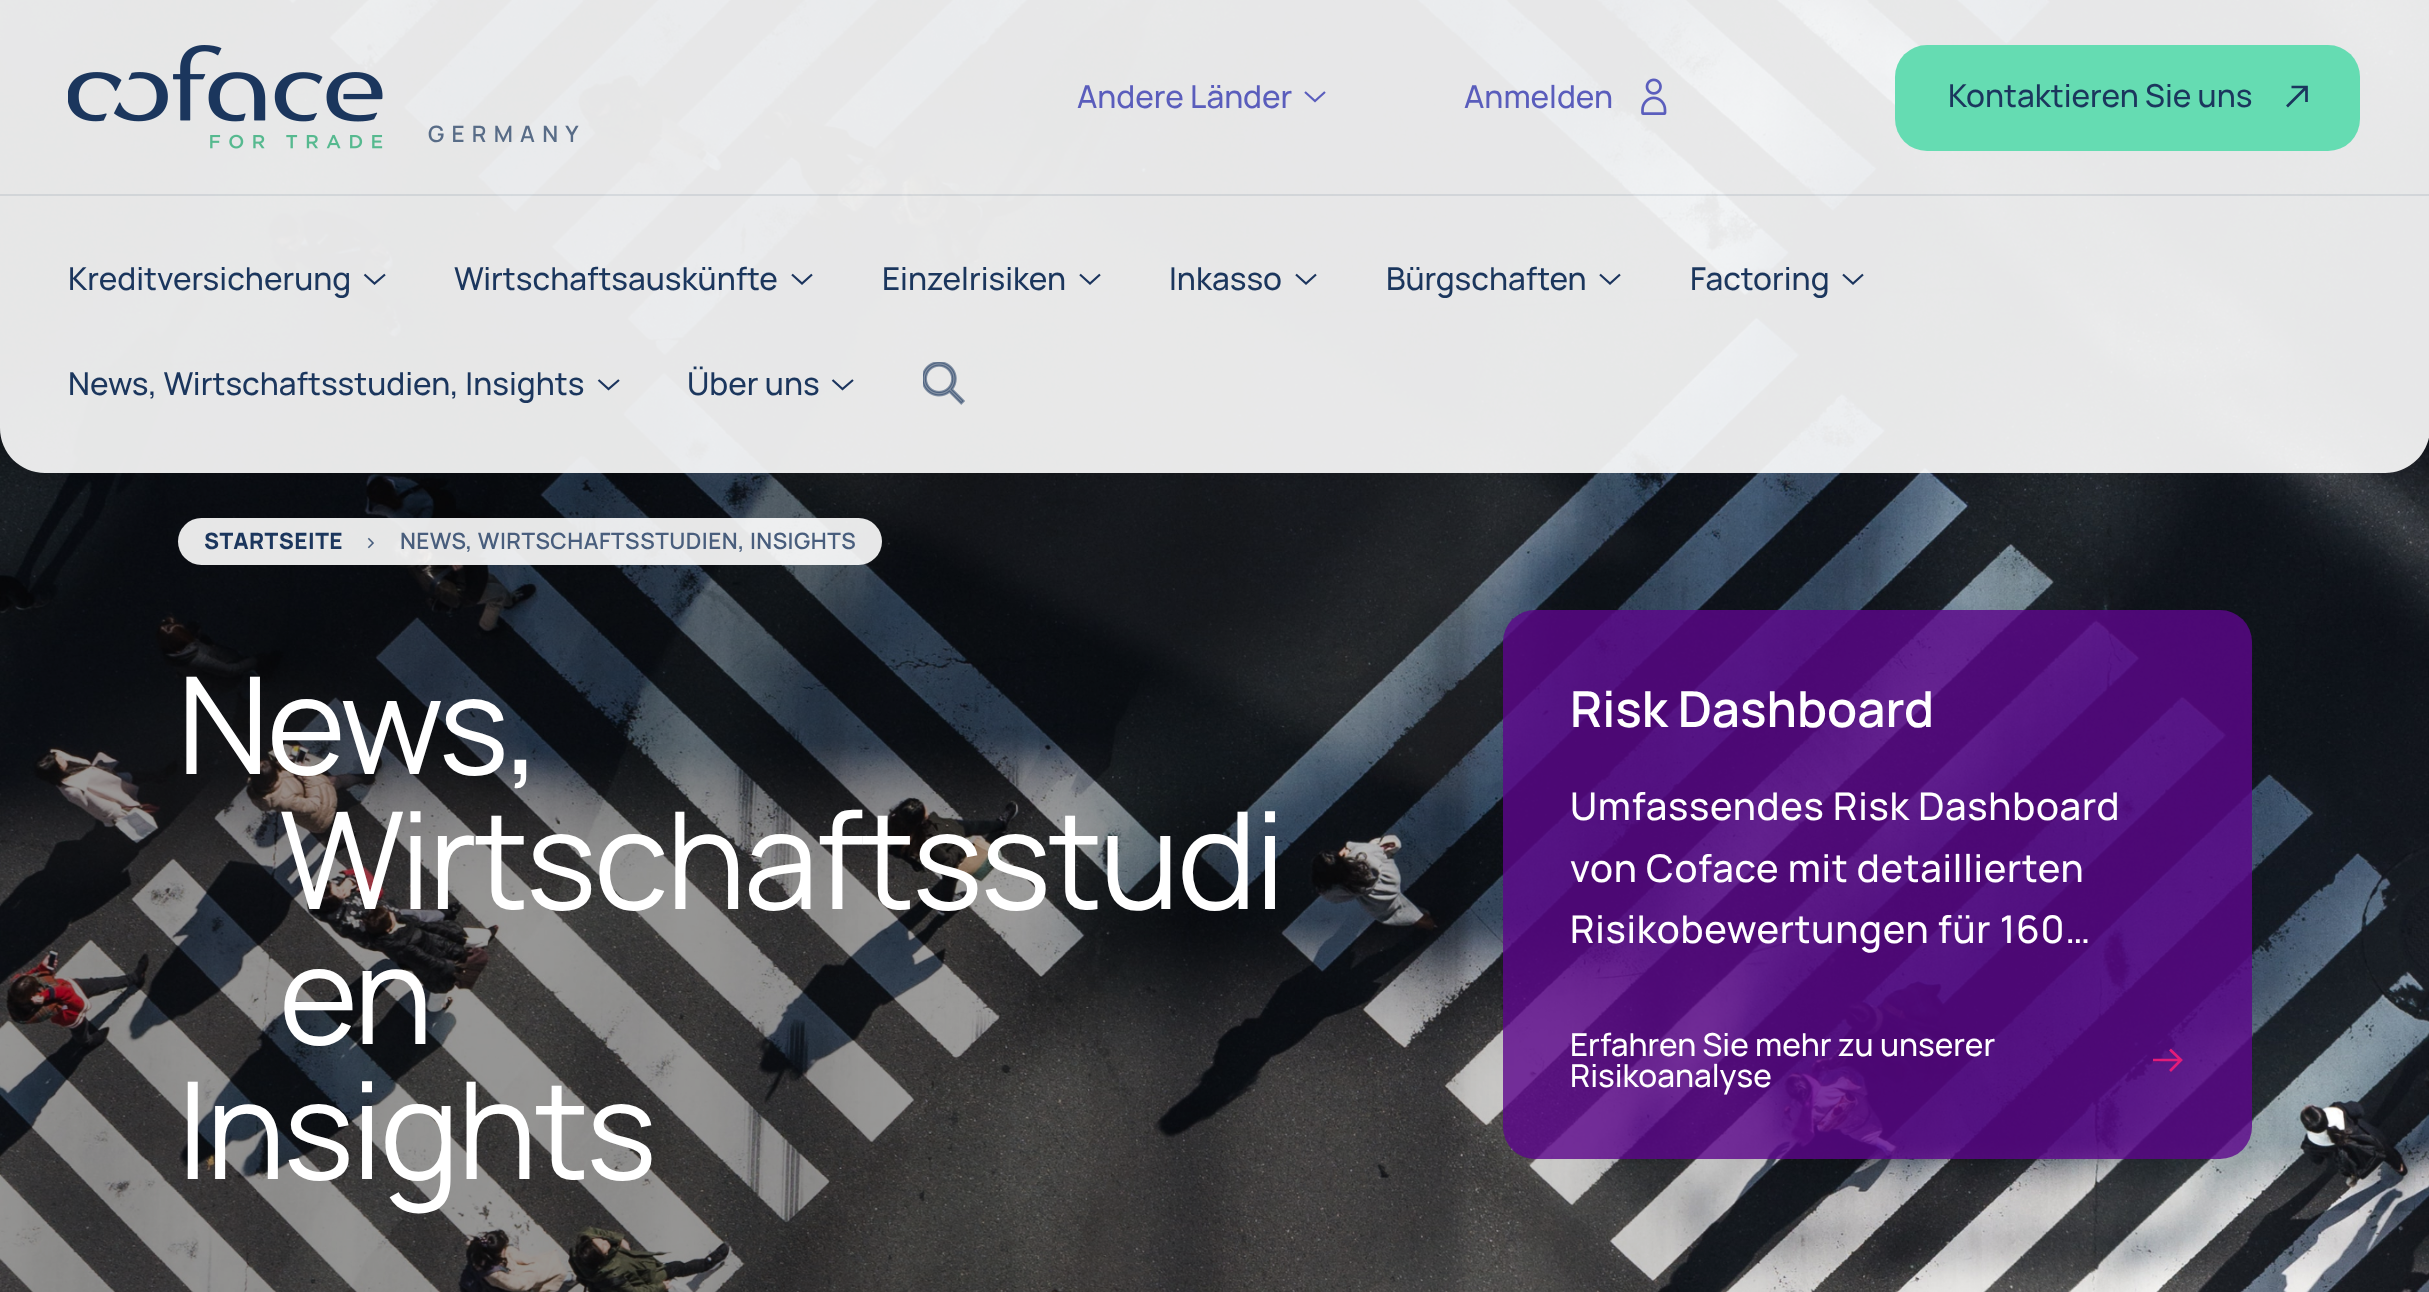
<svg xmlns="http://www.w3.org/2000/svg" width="2429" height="1292">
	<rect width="100%" height="100%" fill="#FFFFFF" />
	<image x="0" y="0" width="2429" height="1292" href="assets/img4.png" />
	<path d="M0 0H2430V428C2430 453 2410 473 2385 473H45C20 473 0 453 0 428Z" fill="#FFFFFF" fill-opacity="0.9" />
	<rect x="0" y="194" width="2429" height="2" fill="#1B365D" fill-opacity="0.1" />
	<text x="1077" y="108" font-family="Manrope" font-size="31.5" font-weight="500" fill="#5A5DBC">Andere Länder</text>
	<path d="M1305 92L1315 101L1325 92" fill="none" stroke="#5A5DBD" stroke-width="2.2" />
	<text x="1464" y="108" font-family="Manrope" font-size="31.5" font-weight="500" fill="#5A5DBC">Anmelden</text>
	<image x="1641" y="78" width="26" height="37" href="assets/img1.png" />
	<rect x="1895" y="45" width="465" height="106" rx="32" fill="#65DCB2" />
	<text x="1948" y="107" font-family="Manrope" font-size="31.5" font-weight="500" fill="#1B365D">Kontaktieren Sie uns</text>
	<path d="M2306.5 102V87H2291.5M2306.5 87L2287 106.5" fill="none" stroke="#1B365D" stroke-width="2.7" />
	<text x="68" y="290" font-family="Manrope" font-size="31.5" font-weight="500" fill="#1B365D">Kreditversicherung</text>
	<path d="M364.5 274.5L374.5 283.5L385 274.5" fill="none" stroke="#1C355E" stroke-width="2.2" />
	<text x="454" y="290" font-family="Manrope" font-size="31.5" font-weight="500" fill="#1B365D">Wirtschaftsauskünfte</text>
	<path d="M792 274.5L802 283.5L812 274.5" fill="none" stroke="#1C355E" stroke-width="2.2" />
	<text x="882" y="290" font-family="Manrope" font-size="31.5" font-weight="500" fill="#1B365D">Einzelrisiken</text>
	<path d="M1080 274.5L1090 283.5L1100 274.5" fill="none" stroke="#1C355E" stroke-width="2.2" />
	<text x="1169" y="290" font-family="Manrope" font-size="31.5" font-weight="500" fill="#1B365D">Inkasso</text>
	<path d="M1296 274.5L1306 283.5L1316 274.5" fill="none" stroke="#1C355E" stroke-width="2.2" />
	<text x="1386" y="290" font-family="Manrope" font-size="31.5" font-weight="500" fill="#1B365D">Bürgschaften</text>
	<path d="M1600 274.5L1610 283.5L1620 274.5" fill="none" stroke="#1C355E" stroke-width="2.2" />
	<text x="1690" y="290" font-family="Manrope" font-size="31.5" font-weight="500" fill="#1B365D">Factoring</text>
	<path d="M1843 274.5L1853 283.5L1863 274.5" fill="none" stroke="#1C355E" stroke-width="2.2" />
	<text x="68" y="395" font-family="Manrope" font-size="31.5" font-weight="500" fill="#1B365D">News, Wirtschaftsstudien, Insights</text>
	<path d="M598.5 380L608.5 389L619 380" fill="none" stroke="#1C355E" stroke-width="2.2" />
	<text x="687" y="395" font-family="Manrope" font-size="31.5" font-weight="500" fill="#1B365D">Über uns</text>
	<path d="M832.5 380L842.5 389L853 380" fill="none" stroke="#1C355E" stroke-width="2.2" />
	<image x="923" y="362" width="42" height="43" href="assets/img2.png" />
	<image x="68" y="45" width="315" height="104" href="assets/img3.png" />
	<text x="428" y="142" font-family="Manrope" font-size="22.5" font-weight="600" letter-spacing="7.25" fill="#586C87">GERMANY</text>
	<rect x="178" y="518" width="704" height="47" rx="23.5" fill="#FFFFFF" fill-opacity="0.9" />
	<text x="204" y="549" font-family="Manrope" font-size="22.5" font-weight="800" letter-spacing="0.45" fill="#1B365D">STARTSEITE</text>
	<image x="367" y="537" width="7" height="12" href="assets/img5.png" />
	<text x="400" y="549" font-family="Manrope" font-size="22.5" font-weight="600" letter-spacing="0.45" fill="#495E7D">NEWS, WIRTSCHAFTSSTUDIEN, INSIGHTS</text>
	<g font-family="Manrope" font-size="135" letter-spacing="-2.75" fill="#FFFFFF">
		<text x="177" y="774">News,</text>
		<text x="279" y="909">Wirtschaftsstudi</text>
		<text x="279" y="1044">en</text>
		<text x="177" y="1179">Insights</text>
	</g>
	<rect x="1503" y="610" width="749" height="549" rx="32" fill="#5C068C" fill-opacity="0.8" />
	<text x="1570" y="727" font-family="Manrope" font-size="49.5" font-weight="600" fill="#FFFFFF">Risk Dashboard</text>
	<g font-family="Manrope" font-size="38.25" font-weight="500" letter-spacing="0.75" fill="#FFFFFF">
		<text x="1570" y="820">Umfassendes Risk Dashboard</text>
		<text x="1570" y="882">von Coface mit detaillierten</text>
		<text x="1570" y="943">Risikobewertungen für 160…</text>
	</g>
	<g font-family="Manrope" font-size="31.5" font-weight="500" fill="#FFFFFF">
		<text x="1570" y="1056">Erfahren Sie mehr zu unserer</text>
		<text x="1570" y="1087">Risikoanalyse</text>
	</g>
	<path d="M2170 1071L2181 1060L2170 1049.5M2181 1060H2153" fill="none" stroke="#E31C79" stroke-width="2.7" />
</svg>
